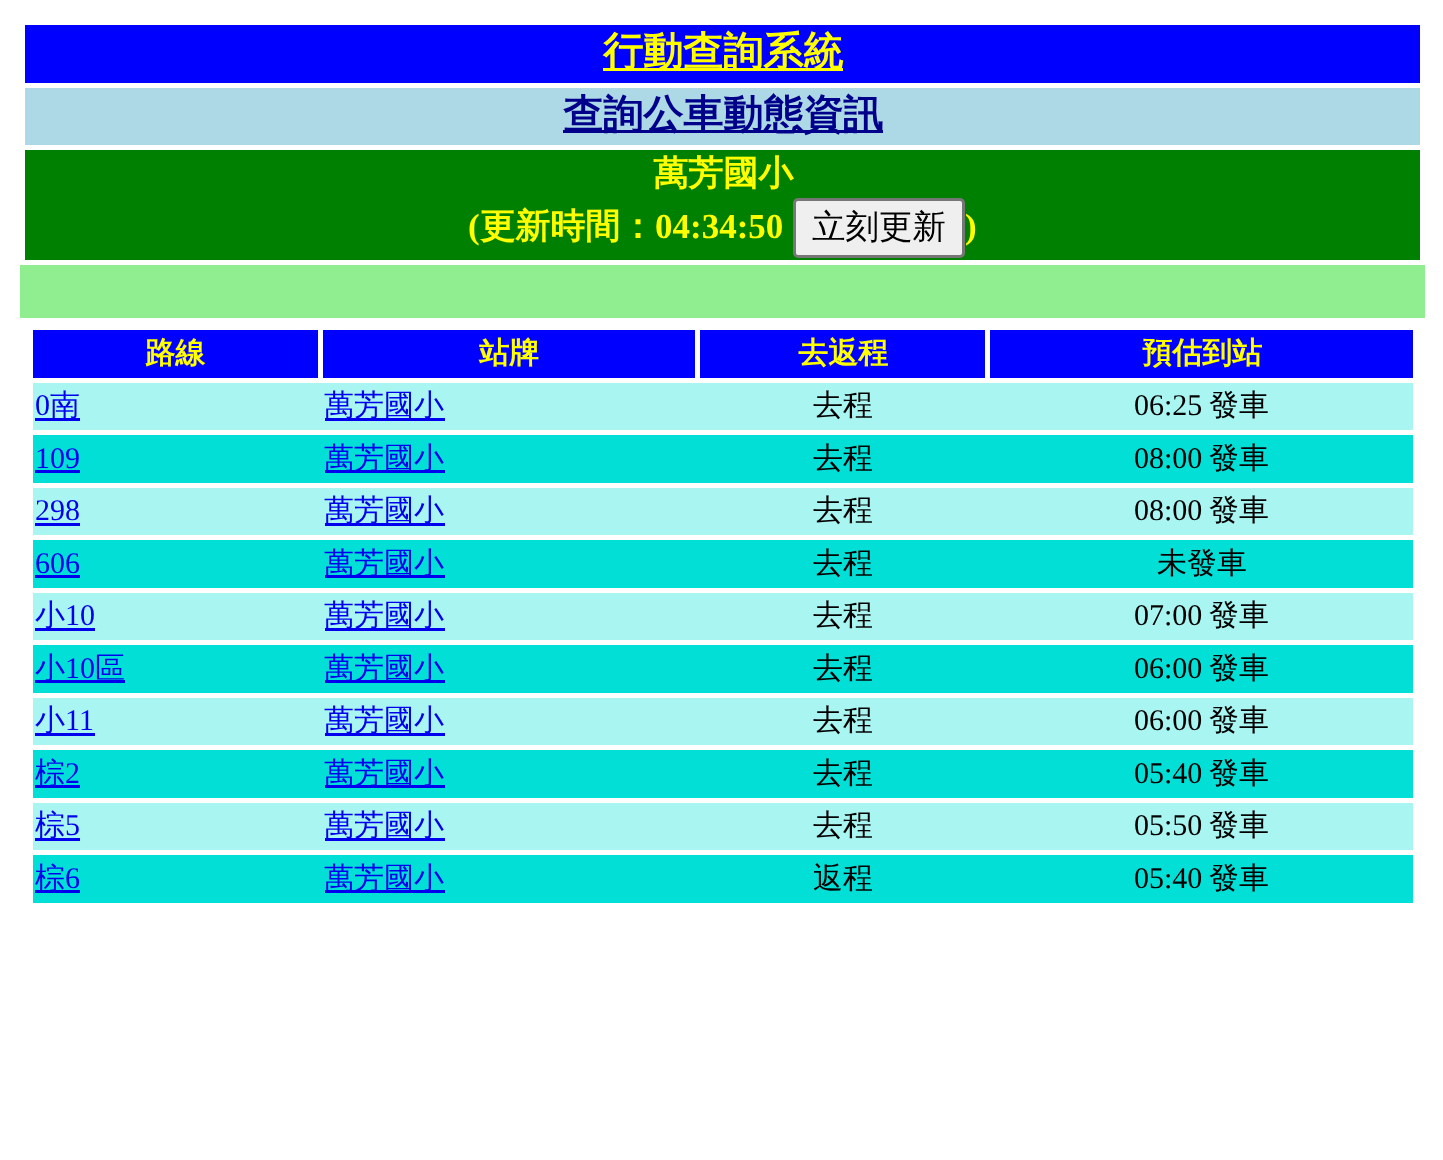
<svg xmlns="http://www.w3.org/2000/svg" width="1443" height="1160">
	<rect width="100%" height="100%" fill="#FFFFFF" />
	<rect x="25" y="25" width="1395" height="58" fill="#0000FF" />
	<rect x="603" y="68" width="240" height="3" fill="#FFFF00" />
	<text x="603" y="65" font-family="WenQuanYi Zen Hei" font-size="40" font-weight="700" fill="#FFFF00">行動查詢系統</text>
	<rect x="25" y="88" width="1395" height="57" fill="#ADD8E6" />
	<rect x="563" y="130" width="320" height="3" fill="#00008B" />
	<text x="563" y="128" font-family="WenQuanYi Zen Hei" font-size="40" font-weight="700" fill="#00008B">查詢公車動態資訊</text>
	<rect x="25" y="150" width="1395" height="110" fill="#008000" />
	<text x="653" y="185" font-family="WenQuanYi Zen Hei" font-size="35" font-weight="700" fill="#FFFF00">萬芳國小</text>
	<text x="468" y="238" font-family="Liberation Serif" font-size="35" font-weight="700" fill="#FFFF00">(</text>
	<text x="480" y="238" font-family="WenQuanYi Zen Hei" font-size="35" font-weight="700" fill="#FFFF00">更新時間：</text>
	<text x="655" y="238" font-family="Liberation Serif" font-size="35" font-weight="700" fill="#FFFF00">04:34:50</text>
	<rect x="794.5" y="199.5" width="169" height="57" rx="3.5" fill="#EFEFEF" stroke="#767676" stroke-width="3" />
	<text x="812" y="238" font-family="WenQuanYi Zen Hei" font-size="33.5" font-weight="500" fill="#000000">立刻更新</text>
	<text x="965" y="238" font-family="Liberation Serif" font-size="35" font-weight="700" fill="#FFFF00">)</text>
	<rect x="20" y="265" width="1405" height="53" fill="#90EE90" />
	<rect x="33" y="330" width="285" height="48" fill="#0000FF" />
	<text x="145" y="363" font-family="WenQuanYi Zen Hei" font-size="30" font-weight="700" fill="#FFFF00">路線</text>
	<rect x="323" y="330" width="372" height="48" fill="#0000FF" />
	<text x="479" y="363" font-family="WenQuanYi Zen Hei" font-size="30" font-weight="700" fill="#FFFF00">站牌</text>
	<rect x="700" y="330" width="285" height="48" fill="#0000FF" />
	<text x="798" y="363" font-family="WenQuanYi Zen Hei" font-size="30" font-weight="700" fill="#FFFF00">去返程</text>
	<rect x="990" y="330" width="423" height="48" fill="#0000FF" />
	<text x="1142" y="363" font-family="WenQuanYi Zen Hei" font-size="30" font-weight="700" fill="#FFFF00">預估到站</text>
	<rect x="33" y="383" width="1380" height="47" fill="#A9F5F2" />
	<text x="35" y="415" font-family="Liberation Serif" font-size="30" fill="#0000EE">0</text>
	<rect x="35" y="418" width="45" height="3" fill="#0000EE" />
	<text x="50" y="415" font-family="WenQuanYi Zen Hei" font-size="30" font-weight="500" fill="#0000EE">南</text>
	<rect x="325" y="418" width="120" height="3" fill="#0000EE" />
	<text x="324" y="415" font-family="WenQuanYi Zen Hei" font-size="30" font-weight="500" fill="#0000EE">萬芳國小</text>
	<text x="813" y="415" font-family="WenQuanYi Zen Hei" font-size="30" font-weight="500" fill="#000000">去程</text>
	<text x="1134" y="415" font-family="Liberation Serif" font-size="30" fill="#000000">06:25</text>
	<text x="1209" y="415" font-family="WenQuanYi Zen Hei" font-size="30" font-weight="500" fill="#000000">發車</text>
	<rect x="33" y="435" width="1380" height="48" fill="#01DFD7" />
	<text x="35" y="468" font-family="Liberation Serif" font-size="30" fill="#0000EE">109</text>
	<rect x="35" y="470" width="45" height="3" fill="#0000EE" />
	<rect x="325" y="470" width="120" height="3" fill="#0000EE" />
	<text x="324" y="468" font-family="WenQuanYi Zen Hei" font-size="30" font-weight="500" fill="#0000EE">萬芳國小</text>
	<text x="813" y="468" font-family="WenQuanYi Zen Hei" font-size="30" font-weight="500" fill="#000000">去程</text>
	<text x="1134" y="468" font-family="Liberation Serif" font-size="30" fill="#000000">08:00</text>
	<text x="1209" y="468" font-family="WenQuanYi Zen Hei" font-size="30" font-weight="500" fill="#000000">發車</text>
	<rect x="33" y="488" width="1380" height="47" fill="#A9F5F2" />
	<text x="35" y="520" font-family="Liberation Serif" font-size="30" fill="#0000EE">298</text>
	<rect x="35" y="523" width="45" height="3" fill="#0000EE" />
	<rect x="325" y="523" width="120" height="3" fill="#0000EE" />
	<text x="324" y="520" font-family="WenQuanYi Zen Hei" font-size="30" font-weight="500" fill="#0000EE">萬芳國小</text>
	<text x="813" y="520" font-family="WenQuanYi Zen Hei" font-size="30" font-weight="500" fill="#000000">去程</text>
	<text x="1134" y="520" font-family="Liberation Serif" font-size="30" fill="#000000">08:00</text>
	<text x="1209" y="520" font-family="WenQuanYi Zen Hei" font-size="30" font-weight="500" fill="#000000">發車</text>
	<rect x="33" y="540" width="1380" height="48" fill="#01DFD7" />
	<text x="35" y="573" font-family="Liberation Serif" font-size="30" fill="#0000EE">606</text>
	<rect x="35" y="575" width="45" height="3" fill="#0000EE" />
	<rect x="325" y="575" width="120" height="3" fill="#0000EE" />
	<text x="324" y="573" font-family="WenQuanYi Zen Hei" font-size="30" font-weight="500" fill="#0000EE">萬芳國小</text>
	<g font-family="WenQuanYi Zen Hei" font-size="30" font-weight="500" fill="#000000">
		<text x="813" y="573">去程</text>
		<text x="1157" y="573">未發車</text>
	</g>
	<rect x="33" y="593" width="1380" height="47" fill="#A9F5F2" />
	<rect x="35" y="628" width="60" height="3" fill="#0000EE" />
	<text x="35" y="625" font-family="WenQuanYi Zen Hei" font-size="30" font-weight="500" fill="#0000EE">小</text>
	<text x="65" y="625" font-family="Liberation Serif" font-size="30" fill="#0000EE">10</text>
	<rect x="325" y="628" width="120" height="3" fill="#0000EE" />
	<text x="324" y="625" font-family="WenQuanYi Zen Hei" font-size="30" font-weight="500" fill="#0000EE">萬芳國小</text>
	<text x="813" y="625" font-family="WenQuanYi Zen Hei" font-size="30" font-weight="500" fill="#000000">去程</text>
	<text x="1134" y="625" font-family="Liberation Serif" font-size="30" fill="#000000">07:00</text>
	<text x="1209" y="625" font-family="WenQuanYi Zen Hei" font-size="30" font-weight="500" fill="#000000">發車</text>
	<rect x="33" y="645" width="1380" height="48" fill="#01DFD7" />
	<rect x="35" y="680" width="90" height="3" fill="#0000EE" />
	<text x="35" y="678" font-family="WenQuanYi Zen Hei" font-size="30" font-weight="500" fill="#0000EE">小</text>
	<text x="65" y="678" font-family="Liberation Serif" font-size="30" fill="#0000EE">10</text>
	<text x="95" y="678" font-family="WenQuanYi Zen Hei" font-size="30" font-weight="500" fill="#0000EE">區</text>
	<rect x="325" y="680" width="120" height="3" fill="#0000EE" />
	<text x="324" y="678" font-family="WenQuanYi Zen Hei" font-size="30" font-weight="500" fill="#0000EE">萬芳國小</text>
	<text x="813" y="678" font-family="WenQuanYi Zen Hei" font-size="30" font-weight="500" fill="#000000">去程</text>
	<text x="1134" y="678" font-family="Liberation Serif" font-size="30" fill="#000000">06:00</text>
	<text x="1209" y="678" font-family="WenQuanYi Zen Hei" font-size="30" font-weight="500" fill="#000000">發車</text>
	<rect x="33" y="698" width="1380" height="47" fill="#A9F5F2" />
	<rect x="35" y="733" width="60" height="3" fill="#0000EE" />
	<text x="35" y="730" font-family="WenQuanYi Zen Hei" font-size="30" font-weight="500" fill="#0000EE">小</text>
	<text x="65" y="730" font-family="Liberation Serif" font-size="30" fill="#0000EE">11</text>
	<rect x="325" y="733" width="120" height="3" fill="#0000EE" />
	<text x="324" y="730" font-family="WenQuanYi Zen Hei" font-size="30" font-weight="500" fill="#0000EE">萬芳國小</text>
	<text x="813" y="730" font-family="WenQuanYi Zen Hei" font-size="30" font-weight="500" fill="#000000">去程</text>
	<text x="1134" y="730" font-family="Liberation Serif" font-size="30" fill="#000000">06:00</text>
	<text x="1209" y="730" font-family="WenQuanYi Zen Hei" font-size="30" font-weight="500" fill="#000000">發車</text>
	<rect x="33" y="750" width="1380" height="48" fill="#01DFD7" />
	<rect x="35" y="785" width="45" height="3" fill="#0000EE" />
	<text x="35" y="783" font-family="WenQuanYi Zen Hei" font-size="30" font-weight="500" fill="#0000EE">棕</text>
	<text x="65" y="783" font-family="Liberation Serif" font-size="30" fill="#0000EE">2</text>
	<rect x="325" y="785" width="120" height="3" fill="#0000EE" />
	<text x="324" y="783" font-family="WenQuanYi Zen Hei" font-size="30" font-weight="500" fill="#0000EE">萬芳國小</text>
	<text x="813" y="783" font-family="WenQuanYi Zen Hei" font-size="30" font-weight="500" fill="#000000">去程</text>
	<text x="1134" y="783" font-family="Liberation Serif" font-size="30" fill="#000000">05:40</text>
	<text x="1209" y="783" font-family="WenQuanYi Zen Hei" font-size="30" font-weight="500" fill="#000000">發車</text>
	<rect x="33" y="803" width="1380" height="47" fill="#A9F5F2" />
	<rect x="35" y="838" width="45" height="3" fill="#0000EE" />
	<text x="35" y="835" font-family="WenQuanYi Zen Hei" font-size="30" font-weight="500" fill="#0000EE">棕</text>
	<text x="65" y="835" font-family="Liberation Serif" font-size="30" fill="#0000EE">5</text>
	<rect x="325" y="838" width="120" height="3" fill="#0000EE" />
	<text x="324" y="835" font-family="WenQuanYi Zen Hei" font-size="30" font-weight="500" fill="#0000EE">萬芳國小</text>
	<text x="813" y="835" font-family="WenQuanYi Zen Hei" font-size="30" font-weight="500" fill="#000000">去程</text>
	<text x="1134" y="835" font-family="Liberation Serif" font-size="30" fill="#000000">05:50</text>
	<text x="1209" y="835" font-family="WenQuanYi Zen Hei" font-size="30" font-weight="500" fill="#000000">發車</text>
	<rect x="33" y="855" width="1380" height="48" fill="#01DFD7" />
	<rect x="35" y="890" width="45" height="3" fill="#0000EE" />
	<text x="35" y="888" font-family="WenQuanYi Zen Hei" font-size="30" font-weight="500" fill="#0000EE">棕</text>
	<text x="65" y="888" font-family="Liberation Serif" font-size="30" fill="#0000EE">6</text>
	<rect x="325" y="890" width="120" height="3" fill="#0000EE" />
	<text x="324" y="888" font-family="WenQuanYi Zen Hei" font-size="30" font-weight="500" fill="#0000EE">萬芳國小</text>
	<text x="813" y="888" font-family="WenQuanYi Zen Hei" font-size="30" font-weight="500" fill="#000000">返程</text>
	<text x="1134" y="888" font-family="Liberation Serif" font-size="30" fill="#000000">05:40</text>
	<text x="1209" y="888" font-family="WenQuanYi Zen Hei" font-size="30" font-weight="500" fill="#000000">發車</text>
</svg>
